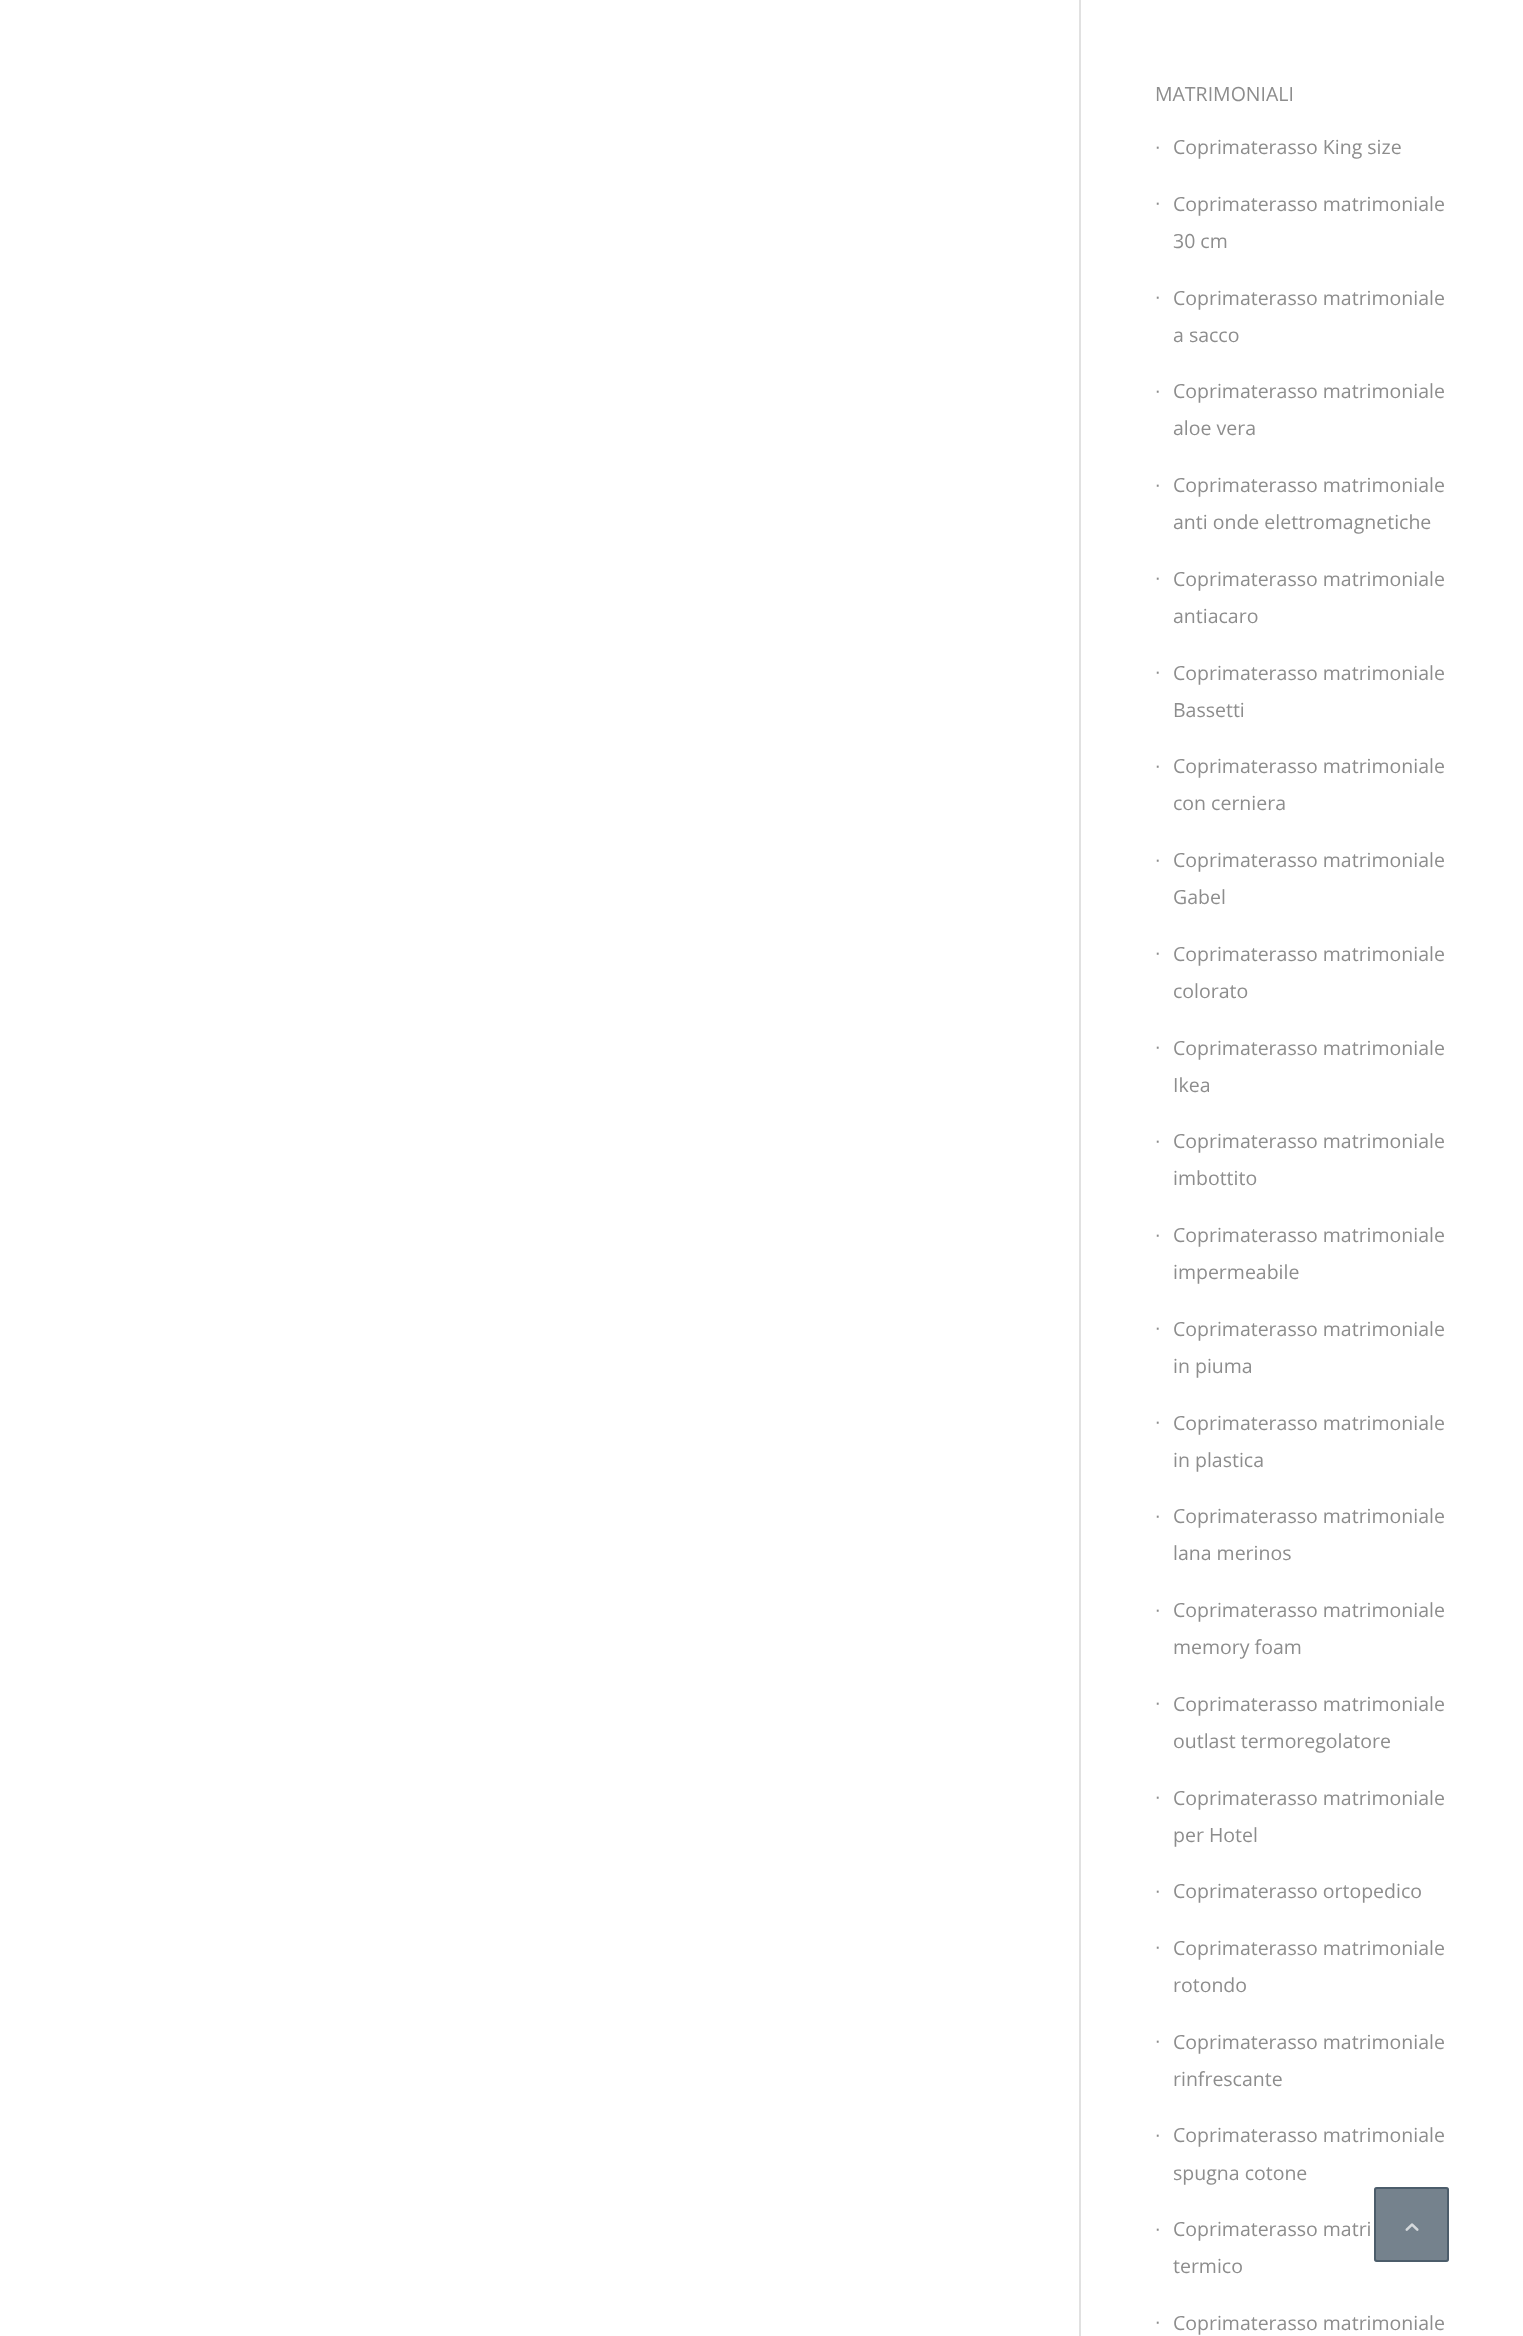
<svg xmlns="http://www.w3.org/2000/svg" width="1523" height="2336">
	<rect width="100%" height="100%" fill="#FFFFFF" />
	<rect x="1079" y="0" width="2" height="2336" fill="#E1E1E1" />
	<text x="1155" y="101" font-family="Open Sans" font-size="19.5" fill="#8D8D8D">MATRIMONIALI</text>
	<text x="1155" y="153" font-family="Liberation Sans" font-size="19.5" fill="#8D8D8D">∙</text>
	<text x="1173" y="154" font-family="Open Sans" font-size="19.5" fill="#8D8D8D">Coprimaterasso King size</text>
	<text x="1155" y="209" font-family="Liberation Sans" font-size="19.5" fill="#8D8D8D">∙</text>
	<g font-family="Open Sans" font-size="19.5" fill="#8D8D8D">
		<text x="1173" y="211">Coprimaterasso matrimoniale</text>
		<text x="1173" y="248">30 cm</text>
	</g>
	<text x="1155" y="303" font-family="Liberation Sans" font-size="19.5" fill="#8D8D8D">∙</text>
	<g font-family="Open Sans" font-size="19.5" fill="#8D8D8D">
		<text x="1173" y="305">Coprimaterasso matrimoniale</text>
		<text x="1173" y="342">a sacco</text>
	</g>
	<text x="1155" y="397" font-family="Liberation Sans" font-size="19.5" fill="#8D8D8D">∙</text>
	<g font-family="Open Sans" font-size="19.5" fill="#8D8D8D">
		<text x="1173" y="398">Coprimaterasso matrimoniale</text>
		<text x="1173" y="435">aloe vera</text>
	</g>
	<text x="1155" y="491" font-family="Liberation Sans" font-size="19.5" fill="#8D8D8D">∙</text>
	<g font-family="Open Sans" font-size="19.5" fill="#8D8D8D">
		<text x="1173" y="492">Coprimaterasso matrimoniale</text>
		<text x="1173" y="529">anti onde elettromagnetiche</text>
	</g>
	<text x="1155" y="584" font-family="Liberation Sans" font-size="19.5" fill="#8D8D8D">∙</text>
	<g font-family="Open Sans" font-size="19.5" fill="#8D8D8D">
		<text x="1173" y="586">Coprimaterasso matrimoniale</text>
		<text x="1173" y="623">antiacaro</text>
	</g>
	<text x="1155" y="678" font-family="Liberation Sans" font-size="19.5" fill="#8D8D8D">∙</text>
	<g font-family="Open Sans" font-size="19.5" fill="#8D8D8D">
		<text x="1173" y="680">Coprimaterasso matrimoniale</text>
		<text x="1173" y="717">Bassetti</text>
	</g>
	<text x="1155" y="772" font-family="Liberation Sans" font-size="19.5" fill="#8D8D8D">∙</text>
	<g font-family="Open Sans" font-size="19.5" fill="#8D8D8D">
		<text x="1173" y="773">Coprimaterasso matrimoniale</text>
		<text x="1173" y="810">con cerniera</text>
	</g>
	<text x="1155" y="866" font-family="Liberation Sans" font-size="19.5" fill="#8D8D8D">∙</text>
	<g font-family="Open Sans" font-size="19.5" fill="#8D8D8D">
		<text x="1173" y="867">Coprimaterasso matrimoniale</text>
		<text x="1173" y="904">Gabel</text>
	</g>
	<text x="1155" y="959" font-family="Liberation Sans" font-size="19.5" fill="#8D8D8D">∙</text>
	<g font-family="Open Sans" font-size="19.5" fill="#8D8D8D">
		<text x="1173" y="961">Coprimaterasso matrimoniale</text>
		<text x="1173" y="998">colorato</text>
	</g>
	<text x="1155" y="1053" font-family="Liberation Sans" font-size="19.5" fill="#8D8D8D">∙</text>
	<g font-family="Open Sans" font-size="19.5" fill="#8D8D8D">
		<text x="1173" y="1055">Coprimaterasso matrimoniale</text>
		<text x="1173" y="1092">Ikea</text>
	</g>
	<text x="1155" y="1147" font-family="Liberation Sans" font-size="19.5" fill="#8D8D8D">∙</text>
	<g font-family="Open Sans" font-size="19.5" fill="#8D8D8D">
		<text x="1173" y="1148">Coprimaterasso matrimoniale</text>
		<text x="1173" y="1185">imbottito</text>
	</g>
	<text x="1155" y="1241" font-family="Liberation Sans" font-size="19.5" fill="#8D8D8D">∙</text>
	<g font-family="Open Sans" font-size="19.5" fill="#8D8D8D">
		<text x="1173" y="1242">Coprimaterasso matrimoniale</text>
		<text x="1173" y="1279">impermeabile</text>
	</g>
	<text x="1155" y="1334" font-family="Liberation Sans" font-size="19.5" fill="#8D8D8D">∙</text>
	<g font-family="Open Sans" font-size="19.5" fill="#8D8D8D">
		<text x="1173" y="1336">Coprimaterasso matrimoniale</text>
		<text x="1173" y="1373">in piuma</text>
	</g>
	<text x="1155" y="1428" font-family="Liberation Sans" font-size="19.5" fill="#8D8D8D">∙</text>
	<g font-family="Open Sans" font-size="19.5" fill="#8D8D8D">
		<text x="1173" y="1430">Coprimaterasso matrimoniale</text>
		<text x="1173" y="1467">in plastica</text>
	</g>
	<text x="1155" y="1522" font-family="Liberation Sans" font-size="19.5" fill="#8D8D8D">∙</text>
	<g font-family="Open Sans" font-size="19.5" fill="#8D8D8D">
		<text x="1173" y="1523">Coprimaterasso matrimoniale</text>
		<text x="1173" y="1560">lana merinos</text>
	</g>
	<text x="1155" y="1616" font-family="Liberation Sans" font-size="19.5" fill="#8D8D8D">∙</text>
	<g font-family="Open Sans" font-size="19.5" fill="#8D8D8D">
		<text x="1173" y="1617">Coprimaterasso matrimoniale</text>
		<text x="1173" y="1654">memory foam</text>
	</g>
	<text x="1155" y="1709" font-family="Liberation Sans" font-size="19.5" fill="#8D8D8D">∙</text>
	<g font-family="Open Sans" font-size="19.5" fill="#8D8D8D">
		<text x="1173" y="1711">Coprimaterasso matrimoniale</text>
		<text x="1173" y="1748">outlast termoregolatore</text>
	</g>
	<text x="1155" y="1803" font-family="Liberation Sans" font-size="19.5" fill="#8D8D8D">∙</text>
	<g font-family="Open Sans" font-size="19.5" fill="#8D8D8D">
		<text x="1173" y="1805">Coprimaterasso matrimoniale</text>
		<text x="1173" y="1842">per Hotel</text>
	</g>
	<text x="1155" y="1897" font-family="Liberation Sans" font-size="19.5" fill="#8D8D8D">∙</text>
	<text x="1173" y="1898" font-family="Open Sans" font-size="19.5" fill="#8D8D8D">Coprimaterasso ortopedico</text>
	<text x="1155" y="1953" font-family="Liberation Sans" font-size="19.5" fill="#8D8D8D">∙</text>
	<g font-family="Open Sans" font-size="19.5" fill="#8D8D8D">
		<text x="1173" y="1955">Coprimaterasso matrimoniale</text>
		<text x="1173" y="1992">rotondo</text>
	</g>
	<text x="1155" y="2047" font-family="Liberation Sans" font-size="19.5" fill="#8D8D8D">∙</text>
	<g font-family="Open Sans" font-size="19.5" fill="#8D8D8D">
		<text x="1173" y="2049">Coprimaterasso matrimoniale</text>
		<text x="1173" y="2086">rinfrescante</text>
	</g>
	<text x="1155" y="2141" font-family="Liberation Sans" font-size="19.5" fill="#8D8D8D">∙</text>
	<g font-family="Open Sans" font-size="19.5" fill="#8D8D8D">
		<text x="1173" y="2142">Coprimaterasso matrimoniale</text>
		<text x="1173" y="2180">spugna cotone</text>
	</g>
	<text x="1155" y="2235" font-family="Liberation Sans" font-size="19.5" fill="#8D8D8D">∙</text>
	<g font-family="Open Sans" font-size="19.5" fill="#8D8D8D">
		<text x="1173" y="2236">Coprimaterasso matri</text>
		<text x="1173" y="2273">termico</text>
	</g>
	<text x="1155" y="2328" font-family="Liberation Sans" font-size="19.5" fill="#8D8D8D">∙</text>
	<text x="1173" y="2330" font-family="Open Sans" font-size="19.5" fill="#8D8D8D">Coprimaterasso matrimoniale</text>
	<rect x="1374" y="2187" width="75" height="75" rx="3" fill="#3A4D5C" fill-opacity="0.7" />
	<rect x="1375" y="2188" width="73" height="73" rx="2" fill="none" stroke="#3A4D5C" stroke-opacity="0.7" stroke-width="2" />
	<image x="1405" y="2223" width="14" height="8" href="assets/img1.png" />
</svg>
